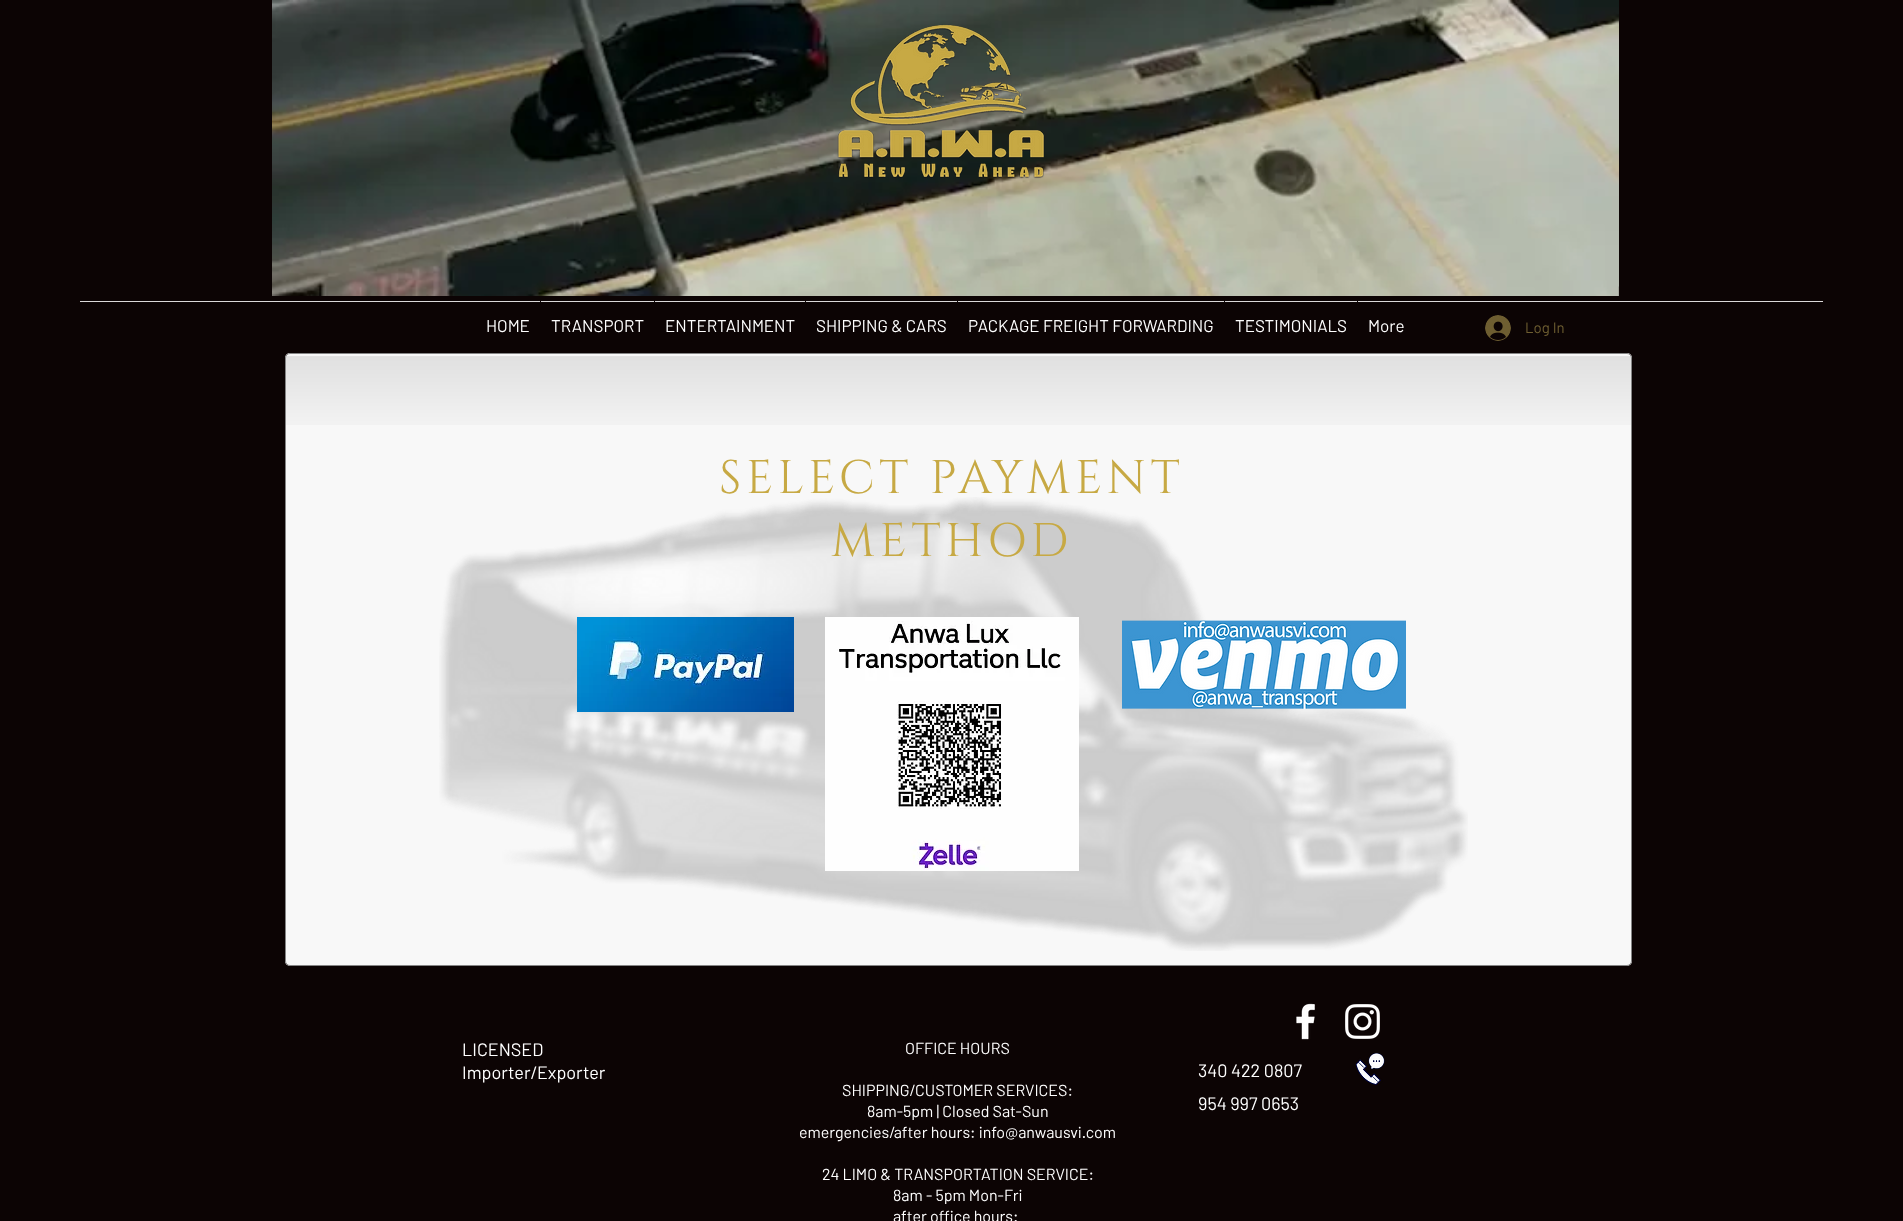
<svg xmlns="http://www.w3.org/2000/svg" width="1903" height="1221">
	<rect width="100%" height="100%" fill="#0C0404" />
	<image x="272" y="0" width="1347" height="296" href="assets/img1.png" />
	<image x="837" y="24" width="208" height="155" href="assets/img2.png" />
	<rect x="80" y="301" width="1743" height="1" fill="#DBD9D9" />
	<text x="486" y="332" font-family="Barlow" font-size="17" fill="#FFFFFF">HOME</text>
	<rect x="540" y="300" width="1" height="2" fill="#0C0404" />
	<text x="551" y="332" font-family="Barlow" font-size="17" fill="#FFFFFF">TRANSPORT</text>
	<rect x="654" y="300" width="1" height="2" fill="#0C0404" />
	<text x="665" y="332" font-family="Barlow" font-size="17" fill="#FFFFFF">ENTERTAINMENT</text>
	<rect x="805" y="300" width="1" height="2" fill="#0C0404" />
	<text x="816" y="332" font-family="Barlow" font-size="17" fill="#FFFFFF">SHIPPING &amp; CARS</text>
	<rect x="957" y="300" width="1" height="2" fill="#0C0404" />
	<text x="968" y="332" font-family="Barlow" font-size="17" fill="#FFFFFF">PACKAGE FREIGHT FORWARDING</text>
	<rect x="1224" y="300" width="1" height="2" fill="#0C0404" />
	<text x="1235" y="332" font-family="Barlow" font-size="17" fill="#FFFFFF">TESTIMONIALS</text>
	<rect x="1357" y="300" width="1" height="2" fill="#0C0404" />
	<text x="1368" y="332" font-family="Barlow" font-size="17" fill="#FFFFFF">More</text>
	<image x="1485" y="315" width="26" height="26" href="assets/img3.png" />
	<text x="1525" y="333" font-family="Barlow" font-size="15" fill="#6E5E31">Log In</text>
	<rect x="285" y="353" width="1347" height="613" rx="5" fill="#F8F8F8" />
	<image x="285" y="356" width="1347" height="69" href="assets/img4.png" />
	<rect x="285.5" y="353.5" width="1346" height="612" rx="4.5" fill="none" stroke="#858585" />
	<text x="719" y="493" font-family="Cinzel" font-size="47" letter-spacing="4.75" fill="#C7A944">SELECT PAYMENT</text>
	<image x="439" y="497" width="1029" height="454" href="assets/img5.png" />
	<text x="831" y="556" font-family="Cinzel" font-size="47" letter-spacing="4.75" fill="#C7A944">METHOD</text>
	<image x="577" y="617" width="217" height="95" href="assets/img6.png" />
	<image x="825" y="617" width="254" height="254" href="assets/img7.png" />
	<image x="1122" y="620" width="284" height="89" href="assets/img8.png" />
	<image x="1296" y="1003" width="19" height="37" href="assets/img9.png" />
	<image x="1345" y="1004" width="35" height="35" href="assets/img10.png" />
	<g font-family="Barlow" font-size="18" fill="#FFFFFF">
		<text x="462" y="1056">LICENSED</text>
		<text x="462" y="1079">Importer/Exporter</text>
	</g>
	<g font-family="Barlow" font-size="16" fill="#FFFFFF">
		<text x="905" y="1054">OFFICE HOURS</text>
		<text x="842" y="1096">SHIPPING/CUSTOMER SERVICES:</text>
		<text x="867" y="1117">8am-5pm | Closed Sat-Sun</text>
		<text x="799" y="1138">emergencies/after hours: info@anwausvi.com</text>
		<text x="822" y="1180">24 LIMO &amp; TRANSPORTATION SERVICE:</text>
		<text x="893" y="1201">8am - 5pm Mon-Fri</text>
		<text x="893" y="1222">after office hours:</text>
	</g>
	<g font-family="Barlow" font-size="18" fill="#FFFFFF">
		<text x="1198" y="1077">340 422 0807</text>
		<text x="1198" y="1110">954 997 0653</text>
	</g>
	<image x="1355" y="1053" width="30" height="32" href="assets/img11.png" />
</svg>
